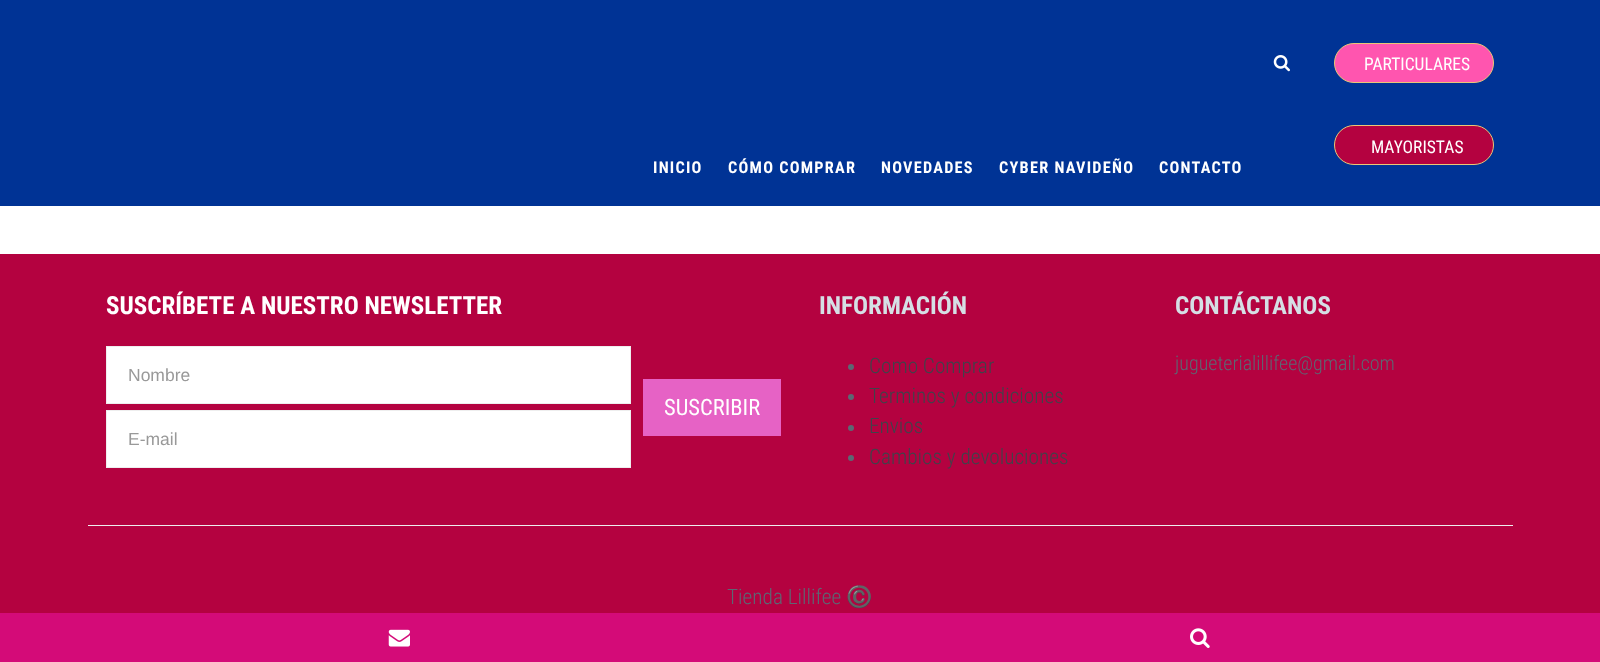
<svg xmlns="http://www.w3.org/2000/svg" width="1600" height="662">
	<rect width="100%" height="100%" fill="#FFFFFF" />
	<rect x="0" y="0" width="1600" height="206" fill="#003395" />
	<image x="1273" y="55" width="17" height="17" href="assets/img1.png" />
	<rect x="1334.5" y="43.5" width="159" height="39" rx="19.5" fill="#FF55AF" stroke="#EAC776" />
	<text x="1364" y="70" font-family="Roboto Condensed" font-size="17.5" fill="#FFFFFF">PARTICULARES</text>
	<rect x="1334.5" y="125.5" width="159" height="39" rx="19.5" fill="#B40240" stroke="#EAC776" />
	<text x="1371" y="153" font-family="Roboto Condensed" font-size="17.5" fill="#FFFFFF">MAYORISTAS</text>
	<g font-family="Roboto Condensed" font-size="16.25" font-weight="700" letter-spacing="1.25" fill="#FFFFFF">
		<text x="653" y="173">INICIO</text>
		<text x="728" y="173">CÓMO COMPRAR</text>
		<text x="881" y="173">NOVEDADES</text>
		<text x="999" y="173">CYBER NAVIDEÑO</text>
		<text x="1159" y="173">CONTACTO</text>
	</g>
	<rect x="0" y="254" width="1600" height="359" fill="#B40240" />
	<text x="106" y="314" font-family="Roboto Condensed" font-size="25" font-weight="700" fill="#FFFFFF">SUSCRÍBETE A NUESTRO NEWSLETTER</text>
	<rect x="106.5" y="346.5" width="524" height="57" fill="#FFFFFF" stroke="#EEEEEE" />
	<text x="128" y="381" font-family="Liberation Sans" font-size="17.5" fill="#999999">Nombre</text>
	<rect x="643" y="379" width="138" height="57" fill="#E662C5" />
	<text x="664" y="415" font-family="Roboto Condensed" font-size="22.5" fill="#FFFFFF">SUSCRIBIR</text>
	<rect x="106.5" y="410.5" width="524" height="57" fill="#FFFFFF" stroke="#EEEEEE" />
	<text x="128" y="445" font-family="Liberation Sans" font-size="17.5" fill="#999999">E-mail</text>
	<text x="819" y="314" font-family="Roboto Condensed" font-size="25" font-weight="700" fill="#D5DFE5">INFORMACIÓN</text>
	<circle cx="851" cy="367" r="3" fill="#5C6873" />
	<text x="869" y="373" font-family="Roboto Condensed" font-size="21.25" font-weight="300" fill="#3F444A">Como Comprar</text>
	<circle cx="851" cy="397" r="3" fill="#5C6873" />
	<text x="869" y="403" font-family="Roboto Condensed" font-size="21.25" font-weight="300" fill="#3F444A">Terminos y condiciones</text>
	<circle cx="851" cy="428" r="3" fill="#5C6873" />
	<text x="869" y="433" font-family="Roboto Condensed" font-size="21.25" font-weight="300" fill="#3F444A">Envios</text>
	<circle cx="851" cy="458" r="3" fill="#5C6873" />
	<text x="869" y="464" font-family="Roboto Condensed" font-size="21.25" font-weight="300" fill="#3F444A">Cambios y devoluciones</text>
	<text x="1175" y="314" font-family="Roboto Condensed" font-size="25" font-weight="700" fill="#D5DFE5">CONTÁCTANOS</text>
	<text x="1175" y="370" font-family="Roboto Condensed" font-size="20" font-weight="300" fill="#5C6873">jugueterialillifee@gmail.com</text>
	<rect x="88" y="525" width="1425" height="1" fill="#EEEEEE" />
	<text x="727" y="604" font-family="Roboto Condensed" font-size="21.25" font-weight="300" fill="#5C6873">Tienda Lillifee</text>
	<text x="846" y="604" font-family="Noto Color Emoji" font-size="21.25" fill="#5C6873">©️</text>
	<rect x="0" y="613" width="1600" height="49" fill="#D40B78" />
	<image x="388" y="629" width="22" height="18" href="assets/img2.png" />
	<image x="1190" y="628" width="20" height="20" href="assets/img3.png" />
</svg>
